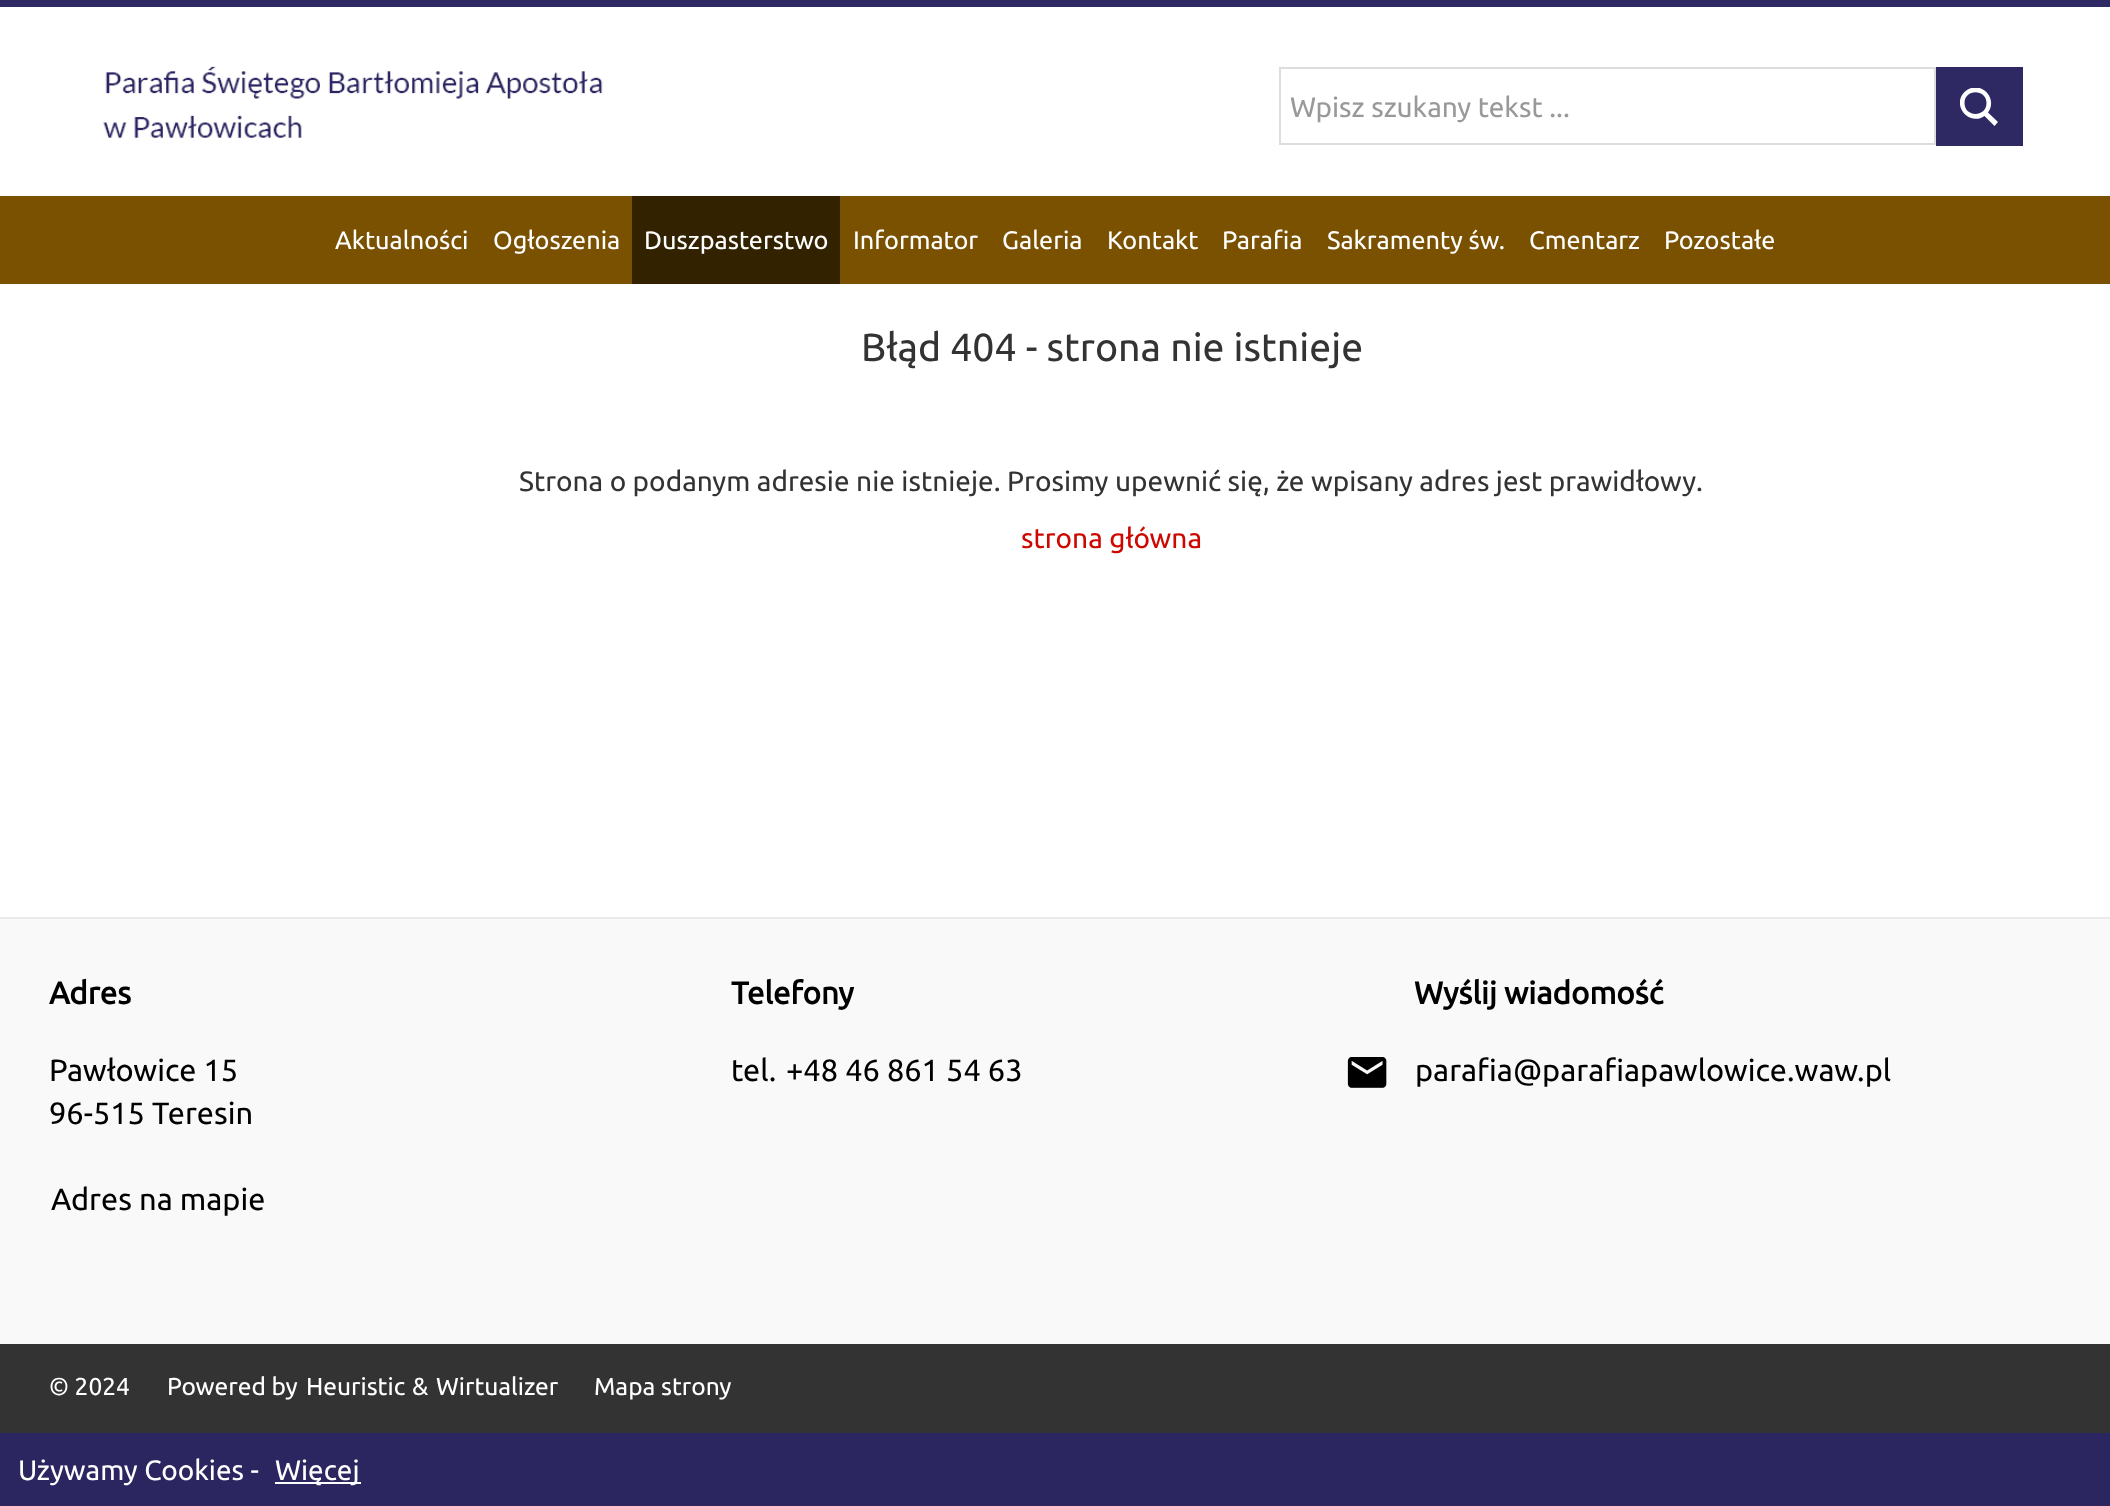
<svg xmlns="http://www.w3.org/2000/svg" width="2110" height="1506">
	<defs>
		<clipPath id="clip1"><rect x="1960" y="88" width="39" height="38" /></clipPath>
	</defs>
	<rect width="100%" height="100%" fill="#FFFFFF" />
	<rect x="0" y="0" width="2110" height="7" fill="#2E2963" />
	<image x="103" y="66" width="500" height="72" href="assets/img1.png" />
	<rect x="1280" y="68" width="655" height="76" fill="none" stroke="#DDDDDD" stroke-width="2" />
	<text x="1290" y="117" font-family="Ubuntu" font-size="28" fill="#999999">Wpisz szukany tekst ...</text>
	<rect x="1936" y="67" width="87" height="79" fill="#2E2963" />
	<g clip-path="url(#clip1)">
		<path d="M1998 122L1988 112.5C1999 97 1978.5 78.5 1964.5 92C1951 105.5 1969.5 126.5 1984.5 116L1994.5 126ZM1964.5 103C1964.5 88.5 1986.5 88.5 1986.5 103C1986.5 117.5 1964.5 117.5 1964.5 103Z" fill="#FFFFFF" />
	</g>
	<rect x="0" y="196" width="2110" height="88" fill="#7A5100" />
	<g font-family="Ubuntu" font-size="25.25" fill="#FFFFFF">
		<text x="335" y="249">Aktualności</text>
		<text x="493" y="249">Ogłoszenia</text>
	</g>
	<rect x="632" y="196" width="208" height="88" fill="#332200" />
	<g font-family="Ubuntu" font-size="25.25" fill="#FFFFFF">
		<text x="644" y="249">Duszpasterstwo</text>
		<text x="853" y="249">Informator</text>
		<text x="1002" y="249">Galeria</text>
		<text x="1107" y="249">Kontakt</text>
		<text x="1222" y="249">Parafia</text>
		<text x="1327" y="249">Sakramenty św.</text>
		<text x="1529" y="249">Cmentarz</text>
		<text x="1664" y="249">Pozostałe</text>
	</g>
	<text x="861" y="361" font-family="Ubuntu" font-size="39.25" fill="#333333">Błąd 404 - strona nie istnieje</text>
	<text x="519" y="491" font-family="Ubuntu" font-size="28" fill="#333333">Strona o podanym adresie nie istnieje. Prosimy upewnić się, że wpisany adres jest prawidłowy.</text>
	<text x="1021" y="548" font-family="Ubuntu" font-size="28" fill="#CC0800">strona główna</text>
	<rect x="0" y="919" width="2110" height="425" fill="#F9F9F9" />
	<rect x="0" y="917" width="2110" height="2" fill="#EAEAEA" />
	<text x="49" y="1004" font-family="Ubuntu" font-size="31.25" font-weight="700" fill="#000000">Adres</text>
	<g font-family="Ubuntu" font-size="30.75" fill="#000000">
		<text x="49" y="1081">Pawłowice 15</text>
		<text x="49" y="1124">96-515 Teresin</text>
		<text x="51" y="1210">Adres na mapie</text>
	</g>
	<text x="731" y="1004" font-family="Ubuntu" font-size="31.25" font-weight="700" fill="#000000">Telefony</text>
	<g font-family="Ubuntu" font-size="30.75" fill="#000000">
		<text x="731" y="1081">tel.</text>
		<text x="786" y="1081">+48 46 861 54 63</text>
	</g>
	<text x="1414" y="1004" font-family="Ubuntu" font-size="31.25" font-weight="700" fill="#000000">Wyślij wiadomość</text>
	<image x="1347" y="1057" width="40" height="31" href="assets/img2.png" />
	<text x="1415" y="1081" font-family="Ubuntu" font-size="30.75" fill="#000000">parafia@parafiapawlowice.waw.pl</text>
	<rect x="0" y="1344" width="2110" height="89" fill="#333333" />
	<g font-family="Ubuntu" font-size="24.5" fill="#FFFFFF">
		<text x="49" y="1395">© 2024</text>
		<text x="167" y="1395">Powered by</text>
		<text x="306" y="1395">Heuristic</text>
		<text x="412" y="1395">&amp;</text>
		<text x="436" y="1395">Wirtualizer</text>
		<text x="594" y="1395">Mapa strony</text>
	</g>
	<rect x="0" y="1433" width="2110" height="73" fill="#2B2660" />
	<text x="18" y="1480" font-family="Ubuntu" font-size="28" fill="#FFFFFF">Używamy Cookies -</text>
	<rect x="275" y="1482" width="86" height="2" fill="#FFFFFF" />
	<text x="275" y="1480" font-family="Ubuntu" font-size="28" fill="#FFFFFF">Więcej</text>
</svg>
